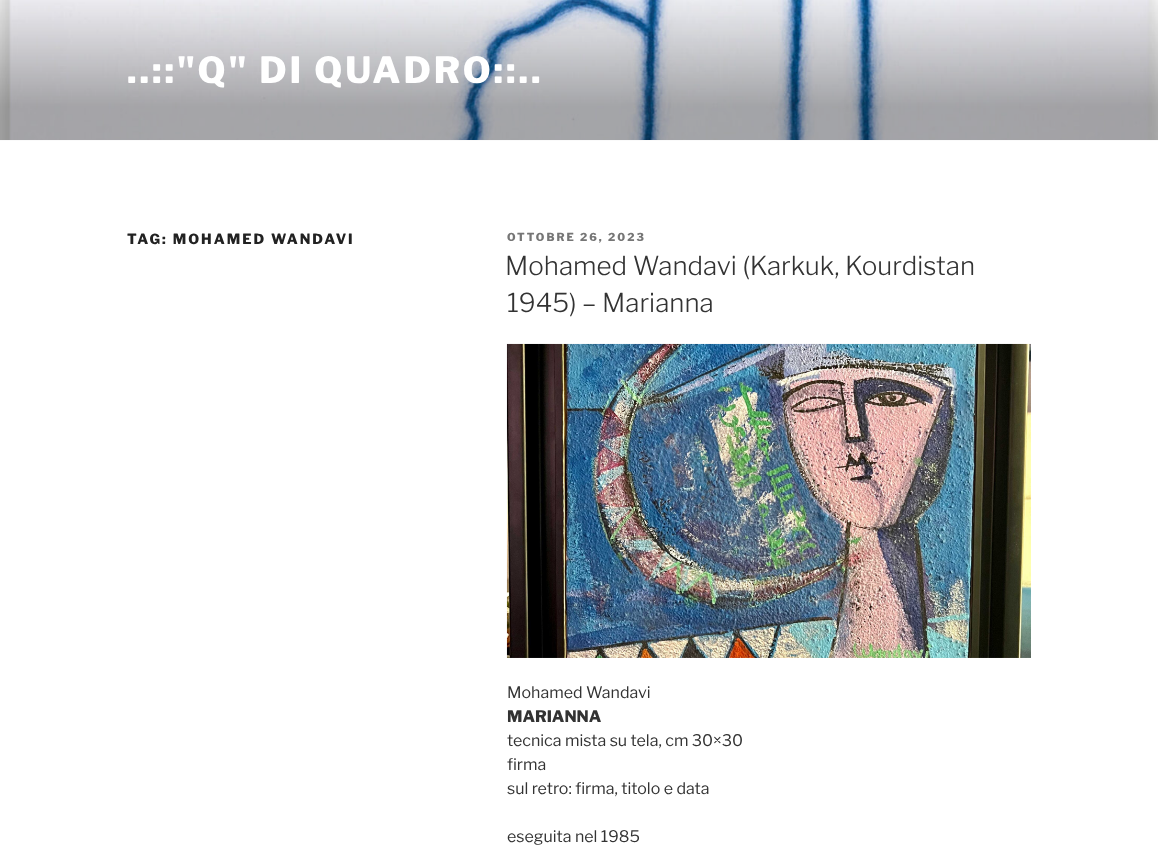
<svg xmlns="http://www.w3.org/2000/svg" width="1158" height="856">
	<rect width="100%" height="100%" fill="#FFFFFF" />
	<rect x="0" y="140" width="1158" height="1" fill="#FAFAFA" />
	<image x="0" y="0" width="1158" height="140" href="assets/img1.png" />
	<text x="127" y="83" font-family="Libre Franklin" font-size="36" font-weight="100" letter-spacing="2.9" fill="#FFFFFF">..::"Q" DI QUADRO::..</text>
	<text x="127" y="244" font-family="Libre Franklin" font-size="14" font-weight="100" letter-spacing="2" fill="#222222">TAG: MOHAMED WANDAVI</text>
	<text x="507" y="241" font-family="Libre Franklin" font-size="11" font-weight="100" letter-spacing="2" fill="#767676">OTTOBRE 26, 2023</text>
	<g font-family="'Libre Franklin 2'" font-size="26" font-weight="100" fill="#333333">
		<text x="505" y="275">Mohamed Wandavi (Karkuk, Kourdistan</text>
		<text x="507" y="312">1945) – Marianna</text>
	</g>
	<image x="506" y="343" width="525" height="315" href="assets/img2.png" />
	<text x="507" y="698" font-family="'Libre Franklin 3'" font-size="16" font-weight="100" fill="#333333">Mohamed Wandavi</text>
	<text x="507" y="722" font-family="Libre Franklin" font-size="16" font-weight="100" fill="#333333">MARIANNA</text>
	<g font-family="'Libre Franklin 3'" font-size="16" font-weight="100" fill="#333333">
		<text x="507" y="746">tecnica mista su tela, cm 30×30</text>
		<text x="507" y="770">firma</text>
		<text x="507" y="794">sul retro: firma, titolo e data</text>
		<text x="507" y="842">eseguita nel 1985</text>
	</g>
</svg>
